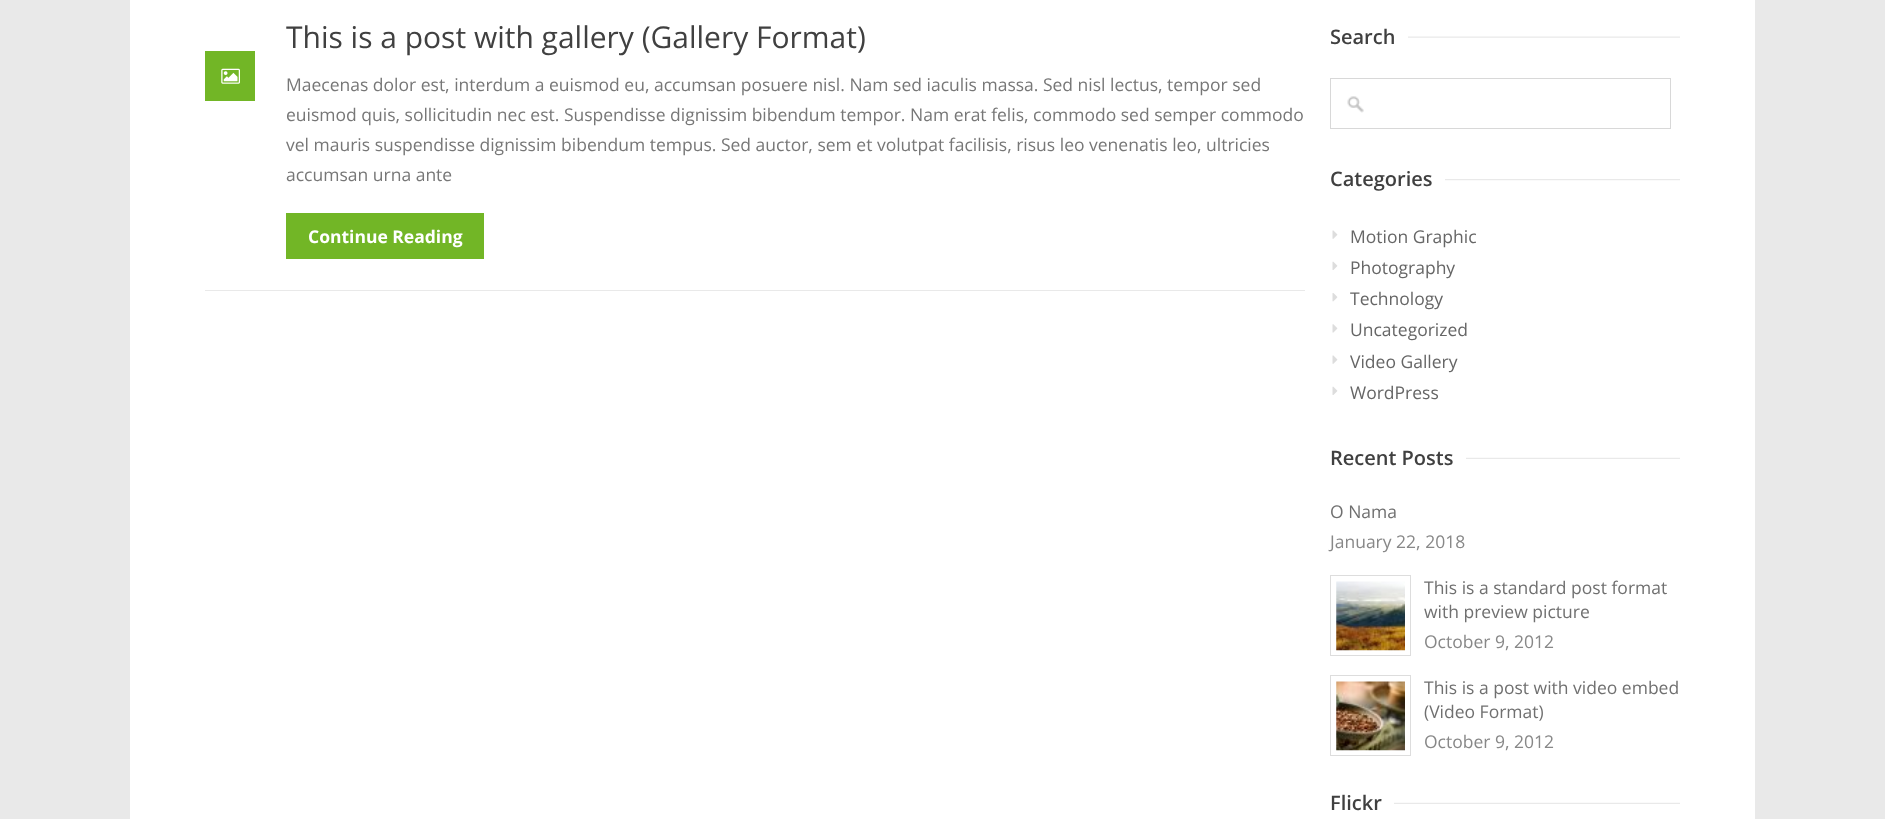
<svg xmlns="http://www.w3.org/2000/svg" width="1885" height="819">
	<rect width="100%" height="100%" fill="#E9E9E9" />
	<rect x="130" y="0" width="1625" height="819" fill="#FFFFFF" />
	<rect x="205" y="290" width="1100" height="1" fill="#E9E9E9" />
	<rect x="205" y="51" width="50" height="50" fill="#72B626" />
	<image x="221" y="68" width="19" height="16" href="assets/img1.png" />
	<text x="286" y="48" font-family="Open Sans" font-size="30" fill="#404040">This is a post with gallery (Gallery Format)</text>
	<g font-family="Open Sans" font-size="17.5" fill="#777777">
		<text x="286" y="91">Maecenas dolor est, interdum a euismod eu, accumsan posuere nisl. Nam sed iaculis massa. Sed nisl lectus, tempor sed</text>
		<text x="286" y="121">euismod quis, sollicitudin nec est. Suspendisse dignissim bibendum tempor. Nam erat felis, commodo sed semper commodo</text>
		<text x="286" y="151">vel mauris suspendisse dignissim bibendum tempus. Sed auctor, sem et volutpat facilisis, risus leo venenatis leo, ultricies</text>
		<text x="286" y="181">accumsan urna ante</text>
	</g>
	<rect x="286" y="213" width="198" height="46" fill="#72B626" />
	<text x="308" y="243" font-family="Open Sans" font-size="17.5" font-weight="700" fill="#FFFFFF">Continue Reading</text>
	<image x="1408" y="36" width="272" height="2" href="assets/img2.png" />
	<text x="1330" y="44" font-family="Open Sans" font-size="20" font-weight="600" fill="#404040">Search</text>
	<image x="1347" y="96" width="17" height="17" href="assets/img3.png" />
	<rect x="1330.5" y="78.5" width="340" height="50" fill="none" stroke="#D8D8D8" />
	<image x="1445" y="179" width="235" height="2" href="assets/img4.png" />
	<text x="1330" y="186" font-family="Open Sans" font-size="20" font-weight="600" fill="#404040">Categories</text>
	<image x="1332" y="230" width="6" height="9" href="assets/img5.png" />
	<text x="1350" y="243" font-family="Open Sans" font-size="17.5" fill="#666666">Motion Graphic</text>
	<image x="1332" y="261" width="6" height="9" href="assets/img6.png" />
	<text x="1350" y="274" font-family="Open Sans" font-size="17.5" fill="#666666">Photography</text>
	<image x="1332" y="293" width="6" height="9" href="assets/img7.png" />
	<text x="1350" y="305" font-family="Open Sans" font-size="17.5" fill="#666666">Technology</text>
	<image x="1332" y="324" width="6" height="9" href="assets/img8.png" />
	<text x="1350" y="336" font-family="Open Sans" font-size="17.5" fill="#666666">Uncategorized</text>
	<image x="1332" y="355" width="6" height="9" href="assets/img5.png" />
	<text x="1350" y="368" font-family="Open Sans" font-size="17.5" fill="#666666">Video Gallery</text>
	<image x="1332" y="386" width="6" height="9" href="assets/img6.png" />
	<text x="1350" y="399" font-family="Open Sans" font-size="17.5" fill="#666666">WordPress</text>
	<image x="1466" y="457" width="214" height="2" href="assets/img9.png" />
	<text x="1330" y="465" font-family="Open Sans" font-size="20" font-weight="600" fill="#404040">Recent Posts</text>
	<text x="1330" y="518" font-family="Open Sans" font-size="17.5" fill="#707070">O Nama</text>
	<text x="1330" y="548" font-family="Open Sans" font-size="17.5" fill="#888888">January 22, 2018</text>
	<rect x="1330.5" y="575.5" width="80" height="80" fill="none" stroke="#DDDDDD" />
	<image x="1336" y="581" width="69" height="70" href="assets/img10.png" />
	<g font-family="Open Sans" font-size="17.5" fill="#707070">
		<text x="1424" y="594">This is a standard post format</text>
		<text x="1424" y="618">with preview picture</text>
	</g>
	<text x="1424" y="648" font-family="Open Sans" font-size="17.5" fill="#888888">October 9, 2012</text>
	<rect x="1330.5" y="675.5" width="80" height="80" fill="none" stroke="#DDDDDD" />
	<image x="1336" y="681" width="69" height="70" href="assets/img11.png" />
	<g font-family="Open Sans" font-size="17.5" fill="#707070">
		<text x="1424" y="694">This is a post with video embed</text>
		<text x="1424" y="718">(Video Format)</text>
	</g>
	<text x="1424" y="748" font-family="Open Sans" font-size="17.5" fill="#888888">October 9, 2012</text>
	<image x="1394" y="802" width="286" height="2" href="assets/img12.png" />
	<text x="1330" y="810" font-family="Open Sans" font-size="20" font-weight="600" fill="#404040">Flickr</text>
</svg>
